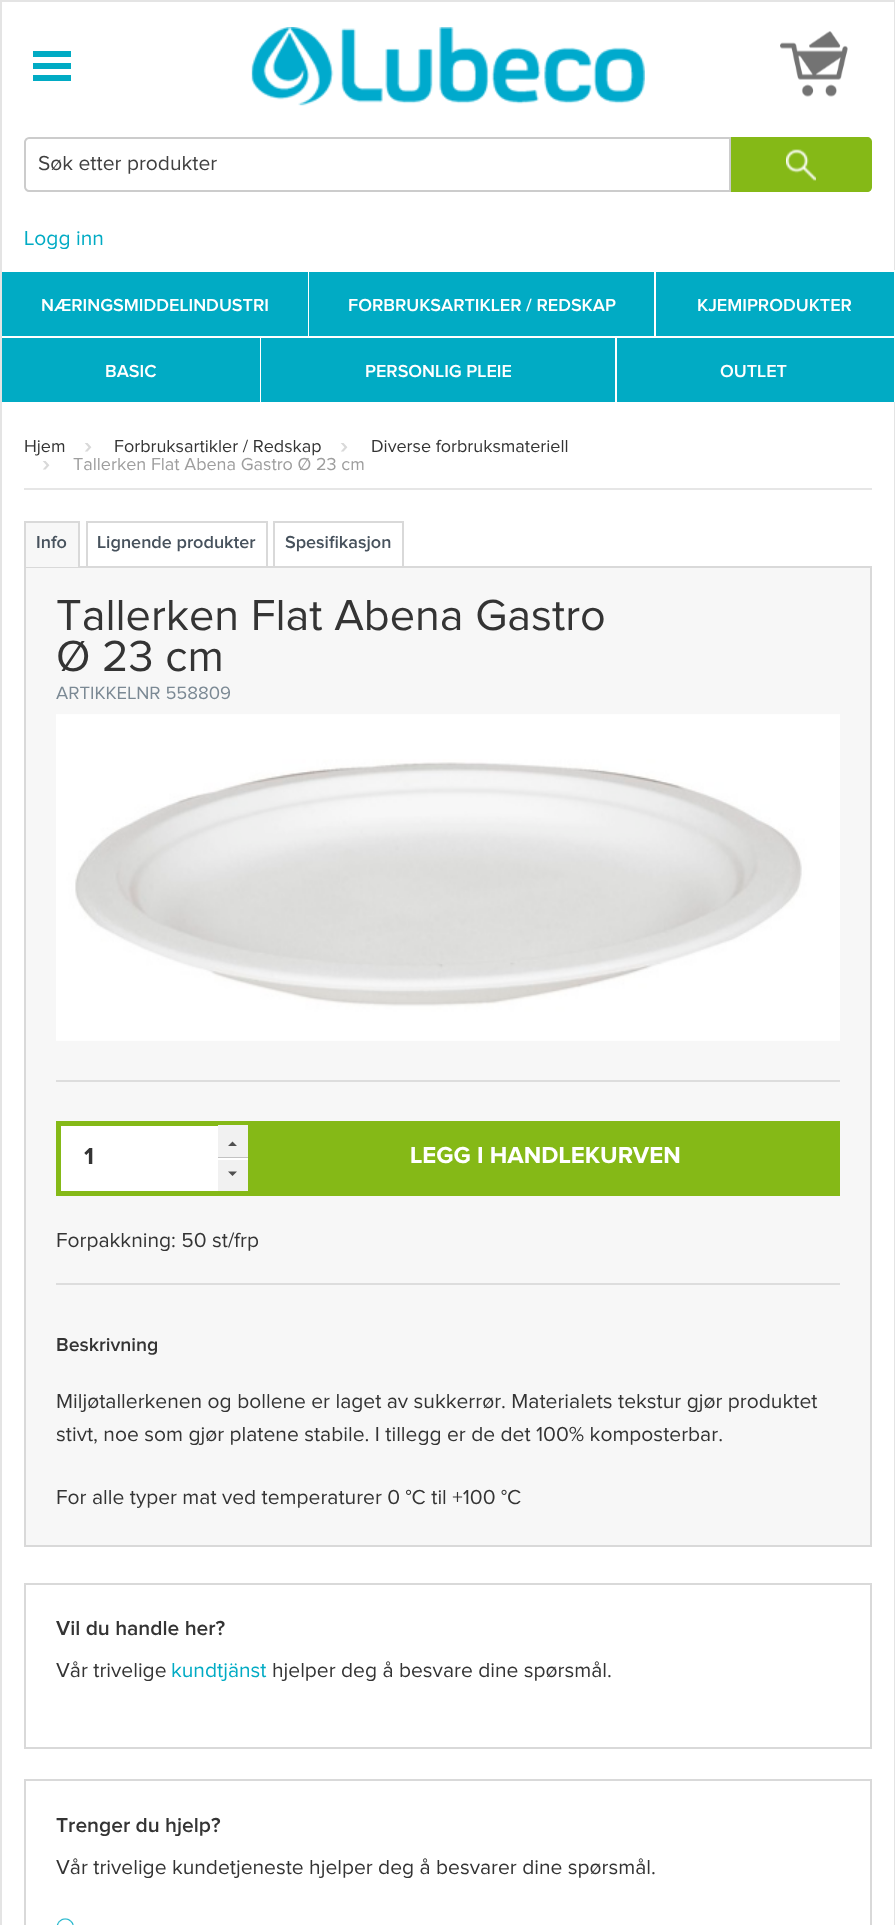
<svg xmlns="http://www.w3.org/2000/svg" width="895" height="1925">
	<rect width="100%" height="100%" fill="#FFFFFF" />
	<rect x="894" y="0" width="1" height="1925" fill="#E4E4E4" />
	<rect x="0" y="0" width="2" height="1925" fill="#E4E4E4" />
	<rect x="2" y="0" width="892" height="2" fill="#E4E4E4" />
	<rect x="33" y="51" width="38" height="6" fill="#01ABC4" />
	<rect x="33" y="63" width="38" height="6" fill="#01ABC4" />
	<rect x="33" y="75" width="38" height="6" fill="#01ABC4" />
	<image x="251" y="27" width="394" height="79" href="assets/img1.png" />
	<image x="780" y="31" width="68" height="66" href="assets/img2.png" />
	<path d="M29 138H730V191H29C27 191 25 189 25 187V142C25 140 27 138 29 138Z" fill="none" stroke="#CCCCCC" stroke-width="2" />
	<text x="38" y="170" font-family="Proxima Nova" font-size="21" fill="#404040">Søk etter produkter</text>
	<path d="M731 137H867C870 137 872 139 872 142V187C872 190 870 192 867 192H731Z" fill="#85B917" />
	<image x="786" y="149" width="30" height="32" href="assets/img3.png" />
	<text x="24" y="245" font-family="Proxima Nova" font-size="21" fill="#01ABC4">Logg inn</text>
	<rect x="2" y="272" width="306" height="64" fill="#01ABC4" />
	<text x="41" y="311" font-family="Proxima Nova" font-size="18" font-weight="600" fill="#FFFFFF">NÆRINGSMIDDELINDUSTRI</text>
	<rect x="309" y="272" width="345" height="64" fill="#01ABC4" />
	<text x="348" y="311" font-family="Proxima Nova" font-size="18" font-weight="600" fill="#FFFFFF">FORBRUKSARTIKLER / REDSKAP</text>
	<rect x="656" y="272" width="238" height="64" fill="#01ABC4" />
	<rect x="894" y="270" width="1" height="132" fill="#FFFFFF" />
	<text x="697" y="311" font-family="Proxima Nova" font-size="18" font-weight="600" fill="#FFFFFF">KJEMIPRODUKTER</text>
	<rect x="2" y="338" width="258" height="64" fill="#01ABC4" />
	<text x="105" y="377" font-family="Proxima Nova" font-size="18" font-weight="600" fill="#FFFFFF">BASIC</text>
	<rect x="261" y="338" width="354" height="64" fill="#01ABC4" />
	<text x="365" y="377" font-family="Proxima Nova" font-size="18" font-weight="600" fill="#FFFFFF">PERSONLIG PLEIE</text>
	<rect x="617" y="338" width="277" height="64" fill="#01ABC4" />
	<text x="720" y="377" font-family="Proxima Nova" font-size="18" font-weight="600" fill="#FFFFFF">OUTLET</text>
	<rect x="24" y="488" width="848" height="2" fill="#E6E6E6" />
	<text x="24" y="452" font-family="Proxima Nova" font-size="18" fill="#343434">Hjem</text>
	<text x="84" y="453" font-family="Proxima Nova" font-size="24" font-weight="700" fill="#D9D9D9">›</text>
	<text x="114" y="452" font-family="Proxima Nova" font-size="18" fill="#343434">Forbruksartikler / Redskap</text>
	<text x="340" y="453" font-family="Proxima Nova" font-size="24" font-weight="700" fill="#D9D9D9">›</text>
	<text x="371" y="452" font-family="Proxima Nova" font-size="18" fill="#343434">Diverse forbruksmateriell</text>
	<text x="42" y="471" font-family="Proxima Nova" font-size="24" font-weight="700" fill="#D9D9D9">›</text>
	<text x="73" y="470" font-family="Proxima Nova" font-size="18" fill="#9E9E9E">Tallerken Flat Abena Gastro Ø 23 cm</text>
	<rect x="25" y="567" width="846" height="979" fill="#F7F7F7" stroke="#D9D9D9" stroke-width="2" />
	<rect x="26" y="523" width="52" height="44" fill="#F7F7F7" />
	<rect x="24" y="521" width="56" height="2" fill="#D9D9D9" />
	<rect x="78" y="521" width="2" height="46" fill="#D9D9D9" />
	<rect x="24" y="521" width="2" height="46" fill="#D9D9D9" />
	<text x="36" y="548" font-family="Proxima Nova" font-size="18" font-weight="600" fill="#47525D">Info</text>
	<rect x="86" y="521" width="181" height="2" fill="#D9D9D9" />
	<rect x="266" y="521" width="2" height="46" fill="#D9D9D9" />
	<rect x="86" y="521" width="2" height="46" fill="#D9D9D9" />
	<text x="97" y="548" font-family="Proxima Nova" font-size="18" font-weight="600" fill="#47525D">Lignende produkter</text>
	<rect x="273" y="521" width="131" height="2" fill="#D9D9D9" />
	<rect x="402" y="521" width="2" height="46" fill="#D9D9D9" />
	<rect x="273" y="521" width="2" height="46" fill="#D9D9D9" />
	<text x="285" y="548" font-family="Proxima Nova" font-size="18" font-weight="600" fill="#47525D">Spesifikasjon</text>
	<g font-family="Proxima Nova" font-size="45" fill="#343434">
		<text x="56" y="630">Tallerken Flat Abena Gastro</text>
		<text x="56" y="671">Ø 23 cm</text>
	</g>
	<text x="56" y="699" font-family="Proxima Nova" font-size="18.5" fill="#7B8994">ARTIKKELNR 558809</text>
	<image x="56" y="714" width="784" height="327" href="assets/img4.png" />
	<rect x="56" y="1080" width="784" height="2" fill="#DDDDDD" />
	<rect x="61" y="1126" width="157" height="65" fill="#FFFFFF" />
	<rect x="58.5" y="1123.5" width="191" height="70" fill="none" stroke="#85B917" stroke-width="5" />
	<text x="84" y="1164" font-family="Proxima Nova" font-size="24" font-weight="700" fill="#343434">1</text>
	<rect x="218" y="1125" width="30" height="66" fill="#F1F1F1" />
	<rect x="218" y="1157" width="30" height="1" fill="#C2C2C2" />
	<rect x="218" y="1158" width="30" height="2" fill="#FFFFFF" />
	<path d="M237 1146H228L232.5 1141.5ZM228 1171.5H237L232.5 1176Z" fill="#505050" />
	<rect x="252" y="1121" width="588" height="75" fill="#85B917" />
	<text x="410" y="1163" font-family="Proxima Nova" font-size="24" font-weight="700" fill="#FFFFFF">LEGG I HANDLEKURVEN</text>
	<text x="56" y="1247" font-family="Proxima Nova" font-size="21" fill="#343434">Forpakkning: 50 st/frp</text>
	<rect x="56" y="1283" width="784" height="2" fill="#DDDDDD" />
	<text x="56" y="1351" font-family="Proxima Nova" font-size="19.5" font-weight="600" fill="#343434">Beskrivning</text>
	<g font-family="Proxima Nova" font-size="21" fill="#343434">
		<text x="56" y="1408">Miljøtallerkenen og bollene er laget av sukkerrør. Materialets tekstur gjør produktet</text>
		<text x="56" y="1441">stivt, noe som gjør platene stabile. I tillegg er de det 100% komposterbar.</text>
		<text x="56" y="1504">For alle typer mat ved temperaturer 0 °C til +100 °C</text>
	</g>
	<rect x="25" y="1584" width="846" height="164" fill="none" stroke="#D9D9D9" stroke-width="2" />
	<text x="56" y="1635" font-family="Proxima Nova" font-size="21" font-weight="600" fill="#343434">Vil du handle her?</text>
	<text x="56" y="1677" font-family="Proxima Nova" font-size="21" fill="#343434">Vår trivelige</text>
	<text x="171" y="1677" font-family="Proxima Nova" font-size="21" fill="#01ABC4">kundtjänst</text>
	<text x="272" y="1677" font-family="Proxima Nova" font-size="21" fill="#343434">hjelper deg å besvare dine spørsmål.</text>
	<rect x="25" y="1780" width="846" height="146" fill="none" stroke="#D9D9D9" stroke-width="2" />
	<text x="56" y="1832" font-family="Proxima Nova" font-size="21" font-weight="600" fill="#343434">Trenger du hjelp?</text>
	<text x="56" y="1874" font-family="Proxima Nova" font-size="21" fill="#343434">Vår trivelige kundetjeneste hjelper deg å besvarer dine spørsmål.</text>
	<image x="56" y="1918" width="18" height="7" href="assets/img5.png" />
</svg>
